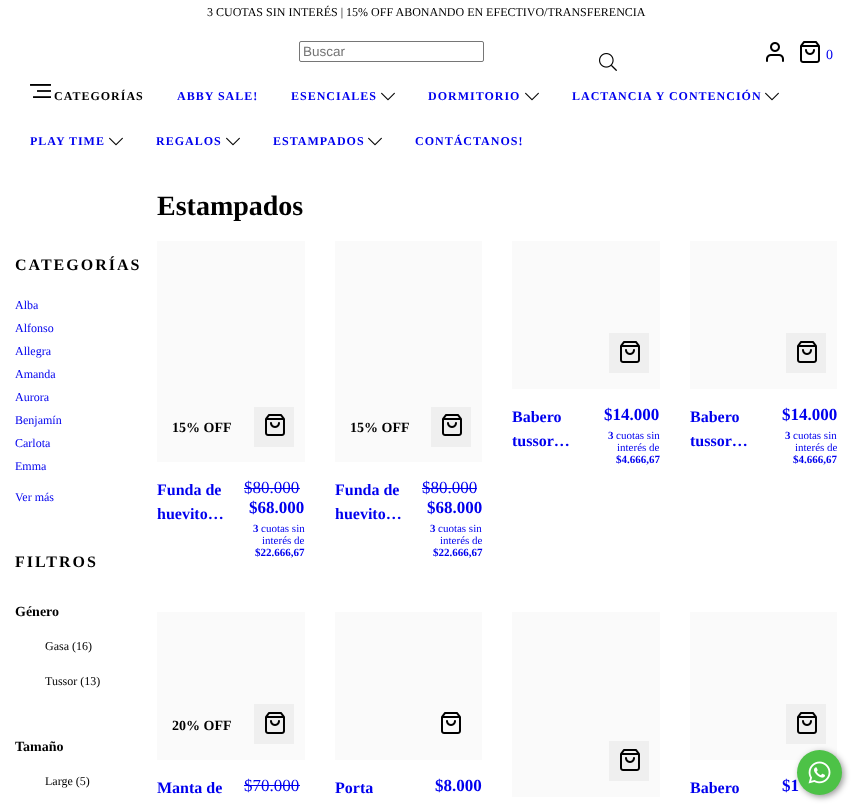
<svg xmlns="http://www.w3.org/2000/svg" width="852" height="805">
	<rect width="100%" height="100%" fill="#FFFFFF" />
	<text x="207" y="16" font-family="Liberation Serif" font-size="12" fill="#000000">3 CUOTAS SIN INTERÉS | 15% OFF ABONANDO EN EFECTIVO/TRANSFERENCIA</text>
	<rect x="299.5" y="41.5" width="184" height="20" rx="1.5" fill="none" stroke="#767676" />
	<text x="303" y="56" font-family="Liberation Sans" font-size="13.5" fill="#757575">Buscar</text>
	<image x="599" y="53" width="18" height="18" href="assets/img1.png" />
	<image x="766" y="42" width="18" height="20" href="assets/img2.png" />
	<image x="800" y="41" width="20" height="22" href="assets/img3.png" />
	<text x="826" y="59" font-family="Liberation Serif" font-size="14" fill="#0000EE">0</text>
	<image x="30" y="84" width="21" height="14" href="assets/img4.png" />
	<text x="54" y="100" font-family="Liberation Serif" font-size="12" font-weight="700" letter-spacing="1" fill="#000000">CATEGORÍAS</text>
	<g font-family="Liberation Serif" font-size="12" font-weight="700" letter-spacing="1" fill="#0000EE">
		<text x="177" y="100">ABBY SALE!</text>
		<text x="291" y="100">ESENCIALES</text>
	</g>
	<image x="381" y="92" width="14" height="9" href="assets/img5.png" />
	<text x="428" y="100" font-family="Liberation Serif" font-size="12" font-weight="700" letter-spacing="1" fill="#0000EE">DORMITORIO</text>
	<image x="525" y="92" width="14" height="9" href="assets/img5.png" />
	<text x="572" y="100" font-family="Liberation Serif" font-size="12" font-weight="700" letter-spacing="1" fill="#0000EE">LACTANCIA Y CONTENCIÓN</text>
	<image x="765" y="92" width="14" height="9" href="assets/img5.png" />
	<text x="30" y="145" font-family="Liberation Serif" font-size="12" font-weight="700" letter-spacing="1" fill="#0000EE">PLAY TIME</text>
	<image x="109" y="137" width="14" height="9" href="assets/img5.png" />
	<text x="156" y="145" font-family="Liberation Serif" font-size="12" font-weight="700" letter-spacing="1" fill="#0000EE">REGALOS</text>
	<image x="226" y="137" width="14" height="9" href="assets/img5.png" />
	<text x="273" y="145" font-family="Liberation Serif" font-size="12" font-weight="700" letter-spacing="1" fill="#0000EE">ESTAMPADOS</text>
	<image x="368" y="137" width="14" height="9" href="assets/img5.png" />
	<text x="415" y="145" font-family="Liberation Serif" font-size="12" font-weight="700" letter-spacing="1" fill="#0000EE">CONTÁCTANOS!</text>
	<text x="15" y="270" font-family="Liberation Serif" font-size="16" font-weight="700" letter-spacing="2" fill="#000000">CATEGORÍAS</text>
	<g font-family="Liberation Serif" font-size="12" fill="#0000EE">
		<text x="15" y="309">Alba</text>
		<text x="15" y="332">Alfonso</text>
		<text x="15" y="355">Allegra</text>
		<text x="15" y="378">Amanda</text>
		<text x="15" y="401">Aurora</text>
		<text x="15" y="424">Benjamín</text>
		<text x="15" y="447">Carlota</text>
		<text x="15" y="470">Emma</text>
		<text x="15" y="501">Ver más</text>
	</g>
	<text x="15" y="567" font-family="Liberation Serif" font-size="16" font-weight="700" letter-spacing="2" fill="#000000">FILTROS</text>
	<text x="15" y="616" font-family="Liberation Serif" font-size="14" font-weight="700" fill="#000000">Género</text>
	<g font-family="Liberation Serif" font-size="12" fill="#000000">
		<text x="45" y="650">Gasa (16)</text>
		<text x="45" y="685">Tussor (13)</text>
	</g>
	<text x="15" y="751" font-family="Liberation Serif" font-size="14" font-weight="700" fill="#000000">Tamaño</text>
	<text x="45" y="785" font-family="Liberation Serif" font-size="12" fill="#000000">Large (5)</text>
	<text x="157" y="215" font-family="Liberation Serif" font-size="28" font-weight="700" fill="#000000">Estampados</text>
	<rect x="157" y="241" width="148" height="221" fill="#FAFAFA" />
	<text x="172" y="432" font-family="Liberation Serif" font-size="14" font-weight="700" fill="#000000">15% OFF</text>
	<rect x="254" y="407" width="40" height="40" fill="#EFEFEF" />
	<image x="265" y="414" width="20" height="22" href="assets/img6.png" />
	<g font-family="Liberation Serif" font-size="16" font-weight="700" fill="#0000EE">
		<text x="157" y="495">Funda de</text>
		<text x="157" y="519">huevito…</text>
	</g>
	<text x="244" y="493" font-family="Liberation Serif" font-size="17" fill="#0000EE">$80.000</text>
	<rect x="244" y="488" width="56" height="1" fill="#0000EE" />
	<text x="249" y="513" font-family="Liberation Serif" font-size="17" font-weight="700" fill="#0000EE">$68.000</text>
	<text x="253" y="532" font-family="Liberation Serif" font-size="11" font-weight="700" fill="#0000EE">3</text>
	<g font-family="Liberation Serif" font-size="11" fill="#0000EE">
		<text x="261" y="532">cuotas sin</text>
		<text x="262" y="544">interés de</text>
	</g>
	<text x="255" y="556" font-family="Liberation Serif" font-size="11" font-weight="700" fill="#0000EE">$22.666,67</text>
	<rect x="335" y="241" width="147" height="221" fill="#FAFAFA" />
	<text x="350" y="432" font-family="Liberation Serif" font-size="14" font-weight="700" fill="#000000">15% OFF</text>
	<rect x="431" y="407" width="40" height="40" fill="#EFEFEF" />
	<image x="442" y="414" width="20" height="22" href="assets/img6.png" />
	<g font-family="Liberation Serif" font-size="16" font-weight="700" fill="#0000EE">
		<text x="335" y="495">Funda de</text>
		<text x="335" y="519">huevito…</text>
	</g>
	<text x="422" y="493" font-family="Liberation Serif" font-size="17" fill="#0000EE">$80.000</text>
	<rect x="422" y="488" width="55" height="1" fill="#0000EE" />
	<text x="427" y="513" font-family="Liberation Serif" font-size="17" font-weight="700" fill="#0000EE">$68.000</text>
	<text x="430" y="532" font-family="Liberation Serif" font-size="11" font-weight="700" fill="#0000EE">3</text>
	<g font-family="Liberation Serif" font-size="11" fill="#0000EE">
		<text x="438" y="532">cuotas sin</text>
		<text x="440" y="544">interés de</text>
	</g>
	<text x="433" y="556" font-family="Liberation Serif" font-size="11" font-weight="700" fill="#0000EE">$22.666,67</text>
	<rect x="512" y="241" width="148" height="148" fill="#FAFAFA" />
	<rect x="609" y="333" width="40" height="40" fill="#EFEFEF" />
	<image x="620" y="341" width="20" height="22" href="assets/img6.png" />
	<g font-family="Liberation Serif" font-size="16" font-weight="700" fill="#0000EE">
		<text x="512" y="422">Babero</text>
		<text x="512" y="446">tussor…</text>
	</g>
	<text x="604" y="420" font-family="Liberation Serif" font-size="17" font-weight="700" fill="#0000EE">$14.000</text>
	<text x="608" y="439" font-family="Liberation Serif" font-size="11" font-weight="700" fill="#0000EE">3</text>
	<g font-family="Liberation Serif" font-size="11" fill="#0000EE">
		<text x="616" y="439">cuotas sin</text>
		<text x="617" y="451">interés de</text>
	</g>
	<text x="616" y="463" font-family="Liberation Serif" font-size="11" font-weight="700" fill="#0000EE">$4.666,67</text>
	<rect x="690" y="241" width="147" height="148" fill="#FAFAFA" />
	<rect x="786" y="333" width="40" height="40" fill="#EFEFEF" />
	<image x="797" y="341" width="20" height="22" href="assets/img6.png" />
	<g font-family="Liberation Serif" font-size="16" font-weight="700" fill="#0000EE">
		<text x="690" y="422">Babero</text>
		<text x="690" y="446">tussor…</text>
	</g>
	<text x="782" y="420" font-family="Liberation Serif" font-size="17" font-weight="700" fill="#0000EE">$14.000</text>
	<text x="785" y="439" font-family="Liberation Serif" font-size="11" font-weight="700" fill="#0000EE">3</text>
	<g font-family="Liberation Serif" font-size="11" fill="#0000EE">
		<text x="793" y="439">cuotas sin</text>
		<text x="795" y="451">interés de</text>
	</g>
	<text x="793" y="463" font-family="Liberation Serif" font-size="11" font-weight="700" fill="#0000EE">$4.666,67</text>
	<rect x="157" y="612" width="148" height="148" fill="#FAFAFA" />
	<text x="172" y="730" font-family="Liberation Serif" font-size="14" font-weight="700" fill="#000000">20% OFF</text>
	<rect x="254" y="704" width="40" height="40" fill="#EFEFEF" />
	<image x="265" y="712" width="20" height="22" href="assets/img6.png" />
	<text x="157" y="793" font-family="Liberation Serif" font-size="16" font-weight="700" fill="#0000EE">Manta de</text>
	<text x="244" y="791" font-family="Liberation Serif" font-size="17" fill="#0000EE">$70.000</text>
	<rect x="244" y="785" width="56" height="1" fill="#0000EE" />
	<rect x="335" y="612" width="147" height="148" fill="#FAFAFA" />
	<image x="441" y="712" width="20" height="22" href="assets/img7.png" />
	<text x="335" y="793" font-family="Liberation Serif" font-size="16" font-weight="700" fill="#0000EE">Porta</text>
	<text x="435" y="791" font-family="Liberation Serif" font-size="17" font-weight="700" fill="#0000EE">$8.000</text>
	<rect x="512" y="612" width="148" height="185" fill="#FAFAFA" />
	<rect x="609" y="741" width="40" height="40" fill="#EFEFEF" />
	<image x="620" y="749" width="20" height="22" href="assets/img6.png" />
	<rect x="690" y="612" width="147" height="148" fill="#FAFAFA" />
	<rect x="786" y="704" width="40" height="40" fill="#EFEFEF" />
	<image x="797" y="712" width="20" height="22" href="assets/img6.png" />
	<text x="690" y="793" font-family="Liberation Serif" font-size="16" font-weight="700" fill="#0000EE">Babero</text>
	<text x="782" y="791" font-family="Liberation Serif" font-size="17" font-weight="700" fill="#0000EE">$1</text>
	<rect x="799" y="752" width="45" height="45" rx="22.5" fill="#000000" fill-opacity="0.4" filter="blur(3px)" />
	<circle cx="819.5" cy="772.5" r="22.5" fill="#4DC247" />
	<image x="808" y="761" width="23" height="23" href="assets/img8.png" />
</svg>
